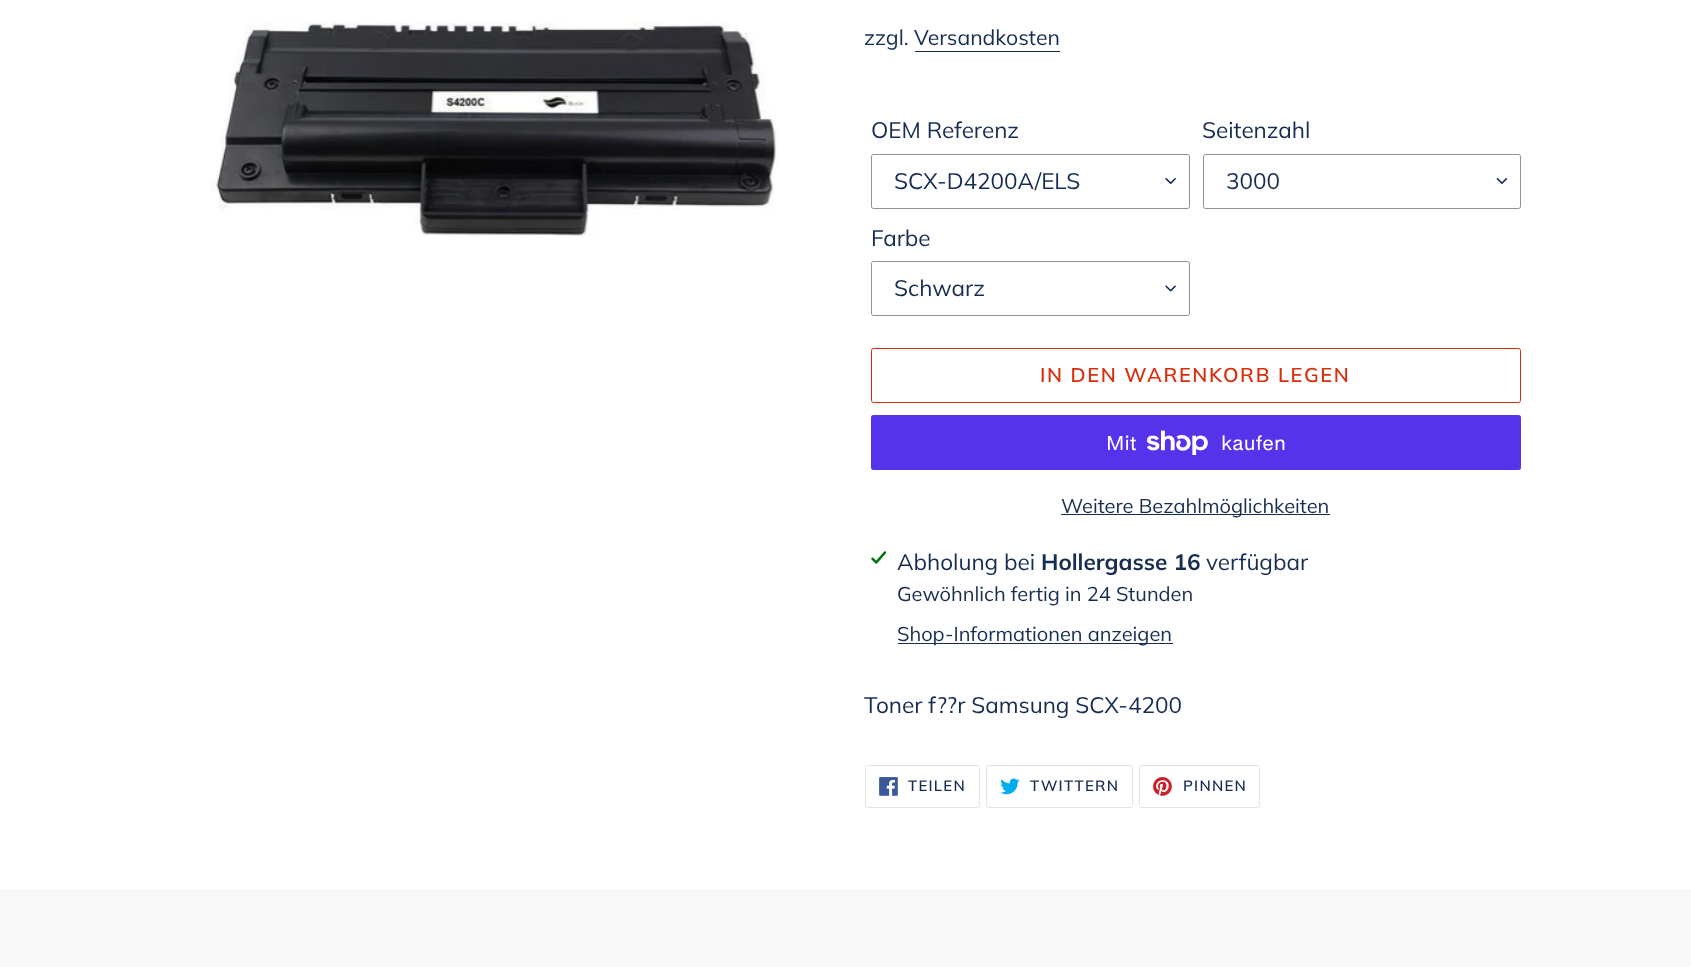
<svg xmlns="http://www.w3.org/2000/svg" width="1691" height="967">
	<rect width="100%" height="100%" fill="#FFFFFF" />
	<image x="209" y="13" width="570" height="224" href="assets/img1.png" />
	<text x="864" y="45" font-family="Muli" font-size="21.25" fill="#162C50">zzgl. Versandkosten</text>
	<rect x="915" y="51" width="145" height="1" fill="#162C50" />
	<text x="871" y="138" font-family="Muli" font-size="22.5" fill="#162C50">OEM Referenz</text>
	<image x="1165" y="178" width="11" height="6" href="assets/img2.png" />
	<rect x="871.5" y="154.5" width="318" height="54" rx="2" fill="none" stroke="#909090" />
	<g font-family="Muli" font-size="22.5" fill="#162C50">
		<text x="894" y="189">SCX-D4200A/ELS</text>
		<text x="1202" y="138">Seitenzahl</text>
	</g>
	<image x="1496" y="178" width="12" height="6" href="assets/img3.png" />
	<rect x="1203.5" y="154.5" width="317" height="54" rx="2" fill="none" stroke="#909090" />
	<g font-family="Muli" font-size="22.5" fill="#162C50">
		<text x="1226" y="189">3000</text>
		<text x="871" y="246">Farbe</text>
	</g>
	<image x="1165" y="285" width="11" height="7" href="assets/img4.png" />
	<rect x="871.5" y="261.5" width="318" height="54" rx="2" fill="none" stroke="#909090" />
	<text x="894" y="296" font-family="Muli" font-size="22.5" fill="#162C50">Schwarz</text>
	<rect x="871.5" y="348.5" width="649" height="54" rx="2" fill="none" stroke="#DA2F0C" />
	<text x="1040" y="382" font-family="Muli" font-size="20" font-weight="600" letter-spacing="1.6" fill="#DA2F0C">IN DEN WARENKORB LEGEN</text>
	<rect x="871" y="415" width="650" height="55" rx="2.5" fill="#5433EB" />
	<text x="1106" y="450" font-family="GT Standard" font-size="20" fill="#FFFFFF">Mit</text>
	<image x="1146" y="430" width="62" height="25" href="assets/img5.png" />
	<text x="1221" y="450" font-family="GT Standard" font-size="20" fill="#FFFFFF">kaufen</text>
	<rect x="1061" y="514" width="269" height="1" fill="#162C50" />
	<text x="1061" y="513" font-family="Muli" font-size="20" fill="#162C50">Weitere Bezahlmöglichkeiten</text>
	<image x="871" y="551" width="15" height="13" href="assets/img6.png" />
	<text x="897" y="570" font-family="Muli" font-size="22.5" fill="#162C50">Abholung bei</text>
	<text x="1041" y="570" font-family="Muli" font-size="22.5" font-weight="700" fill="#162C50">Hollergasse 16</text>
	<text x="1206" y="570" font-family="Muli" font-size="22.5" fill="#162C50">verfügbar</text>
	<text x="897" y="601" font-family="Muli" font-size="20" fill="#162C50">Gewöhnlich fertig in 24 Stunden</text>
	<rect x="898" y="643" width="275" height="1" fill="#162C50" />
	<text x="897" y="641" font-family="Muli" font-size="20" fill="#162C50">Shop-Informationen anzeigen</text>
	<text x="864" y="713" font-family="Muli" font-size="22.5" fill="#162C50">Toner f??r Samsung SCX-4200</text>
	<rect x="865.5" y="765.5" width="114" height="42" rx="2" fill="none" stroke="#E4E4E4" />
	<image x="879" y="777" width="19" height="19" href="assets/img7.png" />
	<text x="908" y="791" font-family="Muli" font-size="15" font-weight="600" letter-spacing="1.25" fill="#162C50">TEILEN</text>
	<rect x="986.5" y="765.5" width="146" height="42" rx="2" fill="none" stroke="#E4E4E4" />
	<image x="1000" y="778" width="20" height="17" href="assets/img8.png" />
	<text x="1030" y="791" font-family="Muli" font-size="15" font-weight="600" letter-spacing="1.25" fill="#162C50">TWITTERN</text>
	<rect x="1139.5" y="765.5" width="120" height="42" rx="2" fill="none" stroke="#E4E4E4" />
	<image x="1153" y="777" width="19" height="19" href="assets/img9.png" />
	<text x="1183" y="791" font-family="Muli" font-size="15" font-weight="600" letter-spacing="1.25" fill="#162C50">PINNEN</text>
	<rect x="0" y="889" width="1691" height="78" fill="#F8F8F8" />
</svg>
